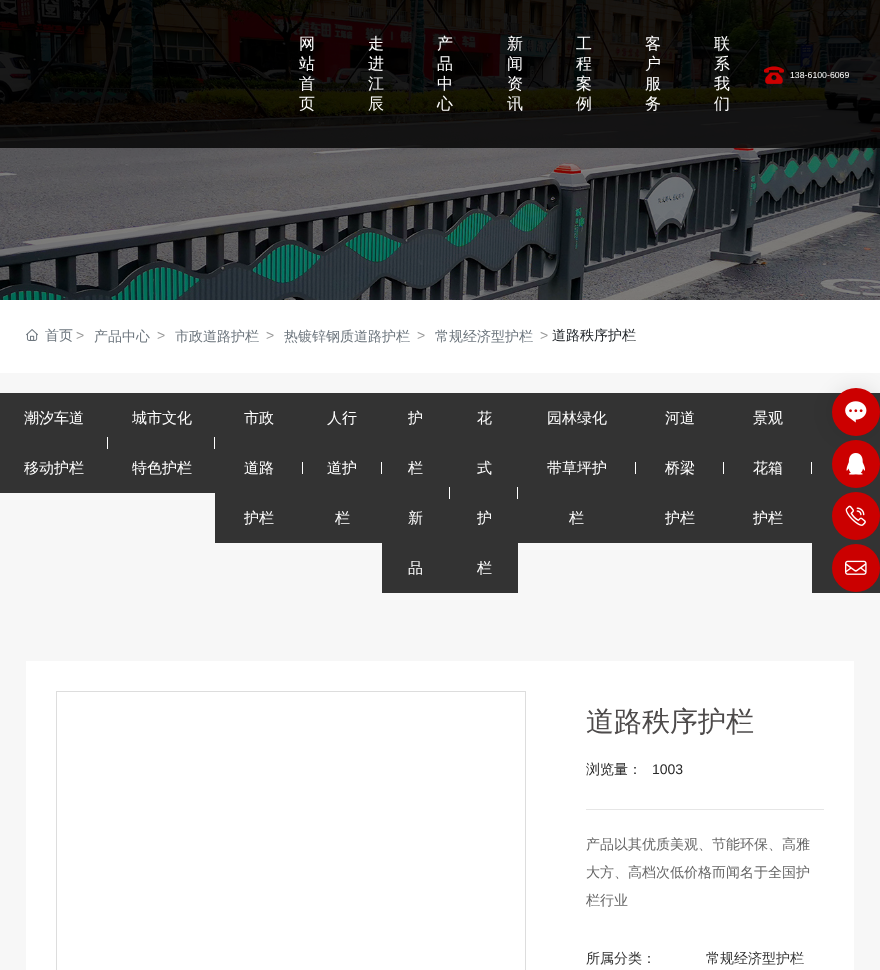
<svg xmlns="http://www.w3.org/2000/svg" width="880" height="970">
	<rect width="100%" height="100%" fill="#000000" />
	<image x="0" y="0" width="880" height="300" href="assets/img1.png" />
	<rect x="0" y="0" width="880" height="148" fill="#000000" fill-opacity="0.8" />
	<g font-family="WenQuanYi Zen Hei" font-size="16" font-weight="500" fill="#FFFFFF">
		<text x="299" y="49">网</text>
		<text x="299" y="69">站</text>
		<text x="299" y="89">首</text>
		<text x="299" y="109">页</text>
		<text x="368" y="49">走</text>
		<text x="368" y="69">进</text>
		<text x="368" y="89">江</text>
		<text x="368" y="109">辰</text>
		<text x="437" y="49">产</text>
		<text x="437" y="69">品</text>
		<text x="437" y="89">中</text>
		<text x="437" y="109">心</text>
		<text x="507" y="49">新</text>
		<text x="507" y="69">闻</text>
		<text x="507" y="89">资</text>
		<text x="507" y="109">讯</text>
		<text x="576" y="49">工</text>
		<text x="576" y="69">程</text>
		<text x="576" y="89">案</text>
		<text x="576" y="109">例</text>
		<text x="645" y="49">客</text>
		<text x="645" y="69">户</text>
		<text x="645" y="89">服</text>
		<text x="645" y="109">务</text>
		<text x="714" y="49">联</text>
		<text x="714" y="69">系</text>
		<text x="714" y="89">我</text>
		<text x="714" y="109">们</text>
	</g>
	<image x="764" y="66" width="20" height="18" href="assets/img2.png" />
	<text x="790" y="78" font-family="Liberation Sans" font-size="8.75" fill="#FFFFFF">138-6100-6069</text>
	<rect x="0" y="300" width="880" height="73" fill="#FFFFFF" />
	<image x="26" y="329" width="12" height="12" href="assets/img3.png" />
	<text x="45" y="340" font-family="WenQuanYi Zen Hei" font-size="14" font-weight="500" fill="#6C757D">首页</text>
	<text x="76" y="340" font-family="Liberation Sans" font-size="14" fill="#999999">&gt;</text>
	<text x="94" y="341" font-family="WenQuanYi Zen Hei" font-size="14" font-weight="500" fill="#6C757D">产品中心</text>
	<text x="157" y="340" font-family="Liberation Sans" font-size="14" fill="#999999">&gt;</text>
	<text x="175" y="341" font-family="WenQuanYi Zen Hei" font-size="14" font-weight="500" fill="#6C757D">市政道路护栏</text>
	<text x="266" y="340" font-family="Liberation Sans" font-size="14" fill="#999999">&gt;</text>
	<text x="284" y="341" font-family="WenQuanYi Zen Hei" font-size="14" font-weight="500" fill="#6C757D">热镀锌钢质道路护栏</text>
	<text x="417" y="340" font-family="Liberation Sans" font-size="14" fill="#999999">&gt;</text>
	<text x="435" y="341" font-family="WenQuanYi Zen Hei" font-size="14" font-weight="500" fill="#6C757D">常规经济型护栏</text>
	<text x="540" y="340" font-family="Liberation Sans" font-size="14" fill="#999999">&gt;</text>
	<text x="552" y="340" font-family="WenQuanYi Zen Hei" font-size="14" font-weight="500" fill="#212529">道路秩序护栏</text>
	<rect x="0" y="373" width="880" height="597" fill="#F7F7F7" />
	<rect x="0" y="393" width="215" height="100" fill="#333333" />
	<text x="24" y="423" font-family="WenQuanYi Zen Hei" font-size="15" font-weight="500" fill="#FFFFFF">潮汐车道</text>
	<rect x="107" y="437" width="1" height="12" fill="#FFFFFF" />
	<g font-family="WenQuanYi Zen Hei" font-size="15" font-weight="500" fill="#FFFFFF">
		<text x="24" y="473">移动护栏</text>
		<text x="132" y="423">城市文化</text>
	</g>
	<rect x="214" y="437" width="1" height="12" fill="#FFFFFF" />
	<text x="132" y="473" font-family="WenQuanYi Zen Hei" font-size="15" font-weight="500" fill="#FFFFFF">特色护栏</text>
	<rect x="215" y="393" width="167" height="150" fill="#333333" />
	<g font-family="WenQuanYi Zen Hei" font-size="15" font-weight="500" fill="#FFFFFF">
		<text x="244" y="423">市政</text>
		<text x="244" y="473">道路</text>
	</g>
	<rect x="302" y="462" width="1" height="12" fill="#FFFFFF" />
	<g font-family="WenQuanYi Zen Hei" font-size="15" font-weight="500" fill="#FFFFFF">
		<text x="244" y="523">护栏</text>
		<text x="327" y="423">人行</text>
		<text x="327" y="473">道护</text>
	</g>
	<rect x="381" y="462" width="1" height="12" fill="#FFFFFF" />
	<text x="335" y="523" font-family="WenQuanYi Zen Hei" font-size="15" font-weight="500" fill="#FFFFFF">栏</text>
	<rect x="382" y="393" width="136" height="200" fill="#333333" />
	<g font-family="WenQuanYi Zen Hei" font-size="15" font-weight="500" fill="#FFFFFF">
		<text x="408" y="423">护</text>
		<text x="408" y="473">栏</text>
	</g>
	<rect x="449" y="487" width="1" height="12" fill="#FFFFFF" />
	<g font-family="WenQuanYi Zen Hei" font-size="15" font-weight="500" fill="#FFFFFF">
		<text x="408" y="523">新</text>
		<text x="408" y="573">品</text>
		<text x="477" y="423">花</text>
		<text x="477" y="473">式</text>
	</g>
	<rect x="517" y="487" width="1" height="12" fill="#FFFFFF" />
	<g font-family="WenQuanYi Zen Hei" font-size="15" font-weight="500" fill="#FFFFFF">
		<text x="477" y="523">护</text>
		<text x="477" y="573">栏</text>
	</g>
	<rect x="518" y="393" width="294" height="150" fill="#333333" />
	<g font-family="WenQuanYi Zen Hei" font-size="15" font-weight="500" fill="#FFFFFF">
		<text x="547" y="423">园林绿化</text>
		<text x="547" y="473">带草坪护</text>
	</g>
	<rect x="635" y="462" width="1" height="12" fill="#FFFFFF" />
	<g font-family="WenQuanYi Zen Hei" font-size="15" font-weight="500" fill="#FFFFFF">
		<text x="569" y="523">栏</text>
		<text x="665" y="423">河道</text>
		<text x="665" y="473">桥梁</text>
	</g>
	<rect x="723" y="462" width="1" height="12" fill="#FFFFFF" />
	<g font-family="WenQuanYi Zen Hei" font-size="15" font-weight="500" fill="#FFFFFF">
		<text x="665" y="523">护栏</text>
		<text x="753" y="423">景观</text>
		<text x="753" y="473">花箱</text>
	</g>
	<rect x="811" y="462" width="1" height="12" fill="#FFFFFF" />
	<text x="753" y="523" font-family="WenQuanYi Zen Hei" font-size="15" font-weight="500" fill="#FFFFFF">护栏</text>
	<rect x="812" y="393" width="68" height="200" fill="#333333" />
	<rect x="832" y="388" width="48" height="48" rx="24" fill="#000000" fill-opacity="0.1" filter="blur(10px)" />
	<circle cx="856" cy="412" r="24" fill="#CC0000" />
	<image x="845" y="401" width="22" height="22" href="assets/img4.png" />
	<circle cx="856" cy="464" r="24" fill="#CC0000" />
	<image x="846" y="453" width="19" height="22" href="assets/img5.png" />
	<circle cx="856" cy="516" r="24" fill="#CB0000" />
	<image x="845" y="505" width="21" height="21" href="assets/img6.png" />
	<circle cx="856" cy="568" r="24" fill="#CB0000" />
	<image x="845" y="560" width="22" height="15" href="assets/img7.png" />
	<rect x="26" y="661" width="828" height="309" fill="#FFFFFF" />
	<rect x="56.5" y="691.5" width="469" height="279" fill="none" stroke="#DDDDDD" />
	<text x="586" y="731" font-family="WenQuanYi Zen Hei" font-size="28" font-weight="500" fill="#4D4A4A">道路秩序护栏</text>
	<text x="586" y="774" font-family="WenQuanYi Zen Hei" font-size="14" font-weight="500" fill="#292929">浏览量：</text>
	<text x="652" y="774" font-family="Liberation Sans" font-size="14" fill="#292929">1003</text>
	<rect x="586" y="809" width="238" height="1" fill="#E6E6E6" />
	<g font-family="WenQuanYi Zen Hei" font-size="14" font-weight="500" fill="#666666">
		<text x="586" y="849">产品以其优质美观、节能环保、高雅</text>
		<text x="586" y="877">大方、高档次低价格而闻名于全国护</text>
		<text x="586" y="905">栏行业</text>
	</g>
	<g font-family="WenQuanYi Zen Hei" font-size="14" font-weight="500" fill="#333333">
		<text x="586" y="963">所属分类：</text>
		<text x="706" y="963">常规经济型护栏</text>
	</g>
</svg>
